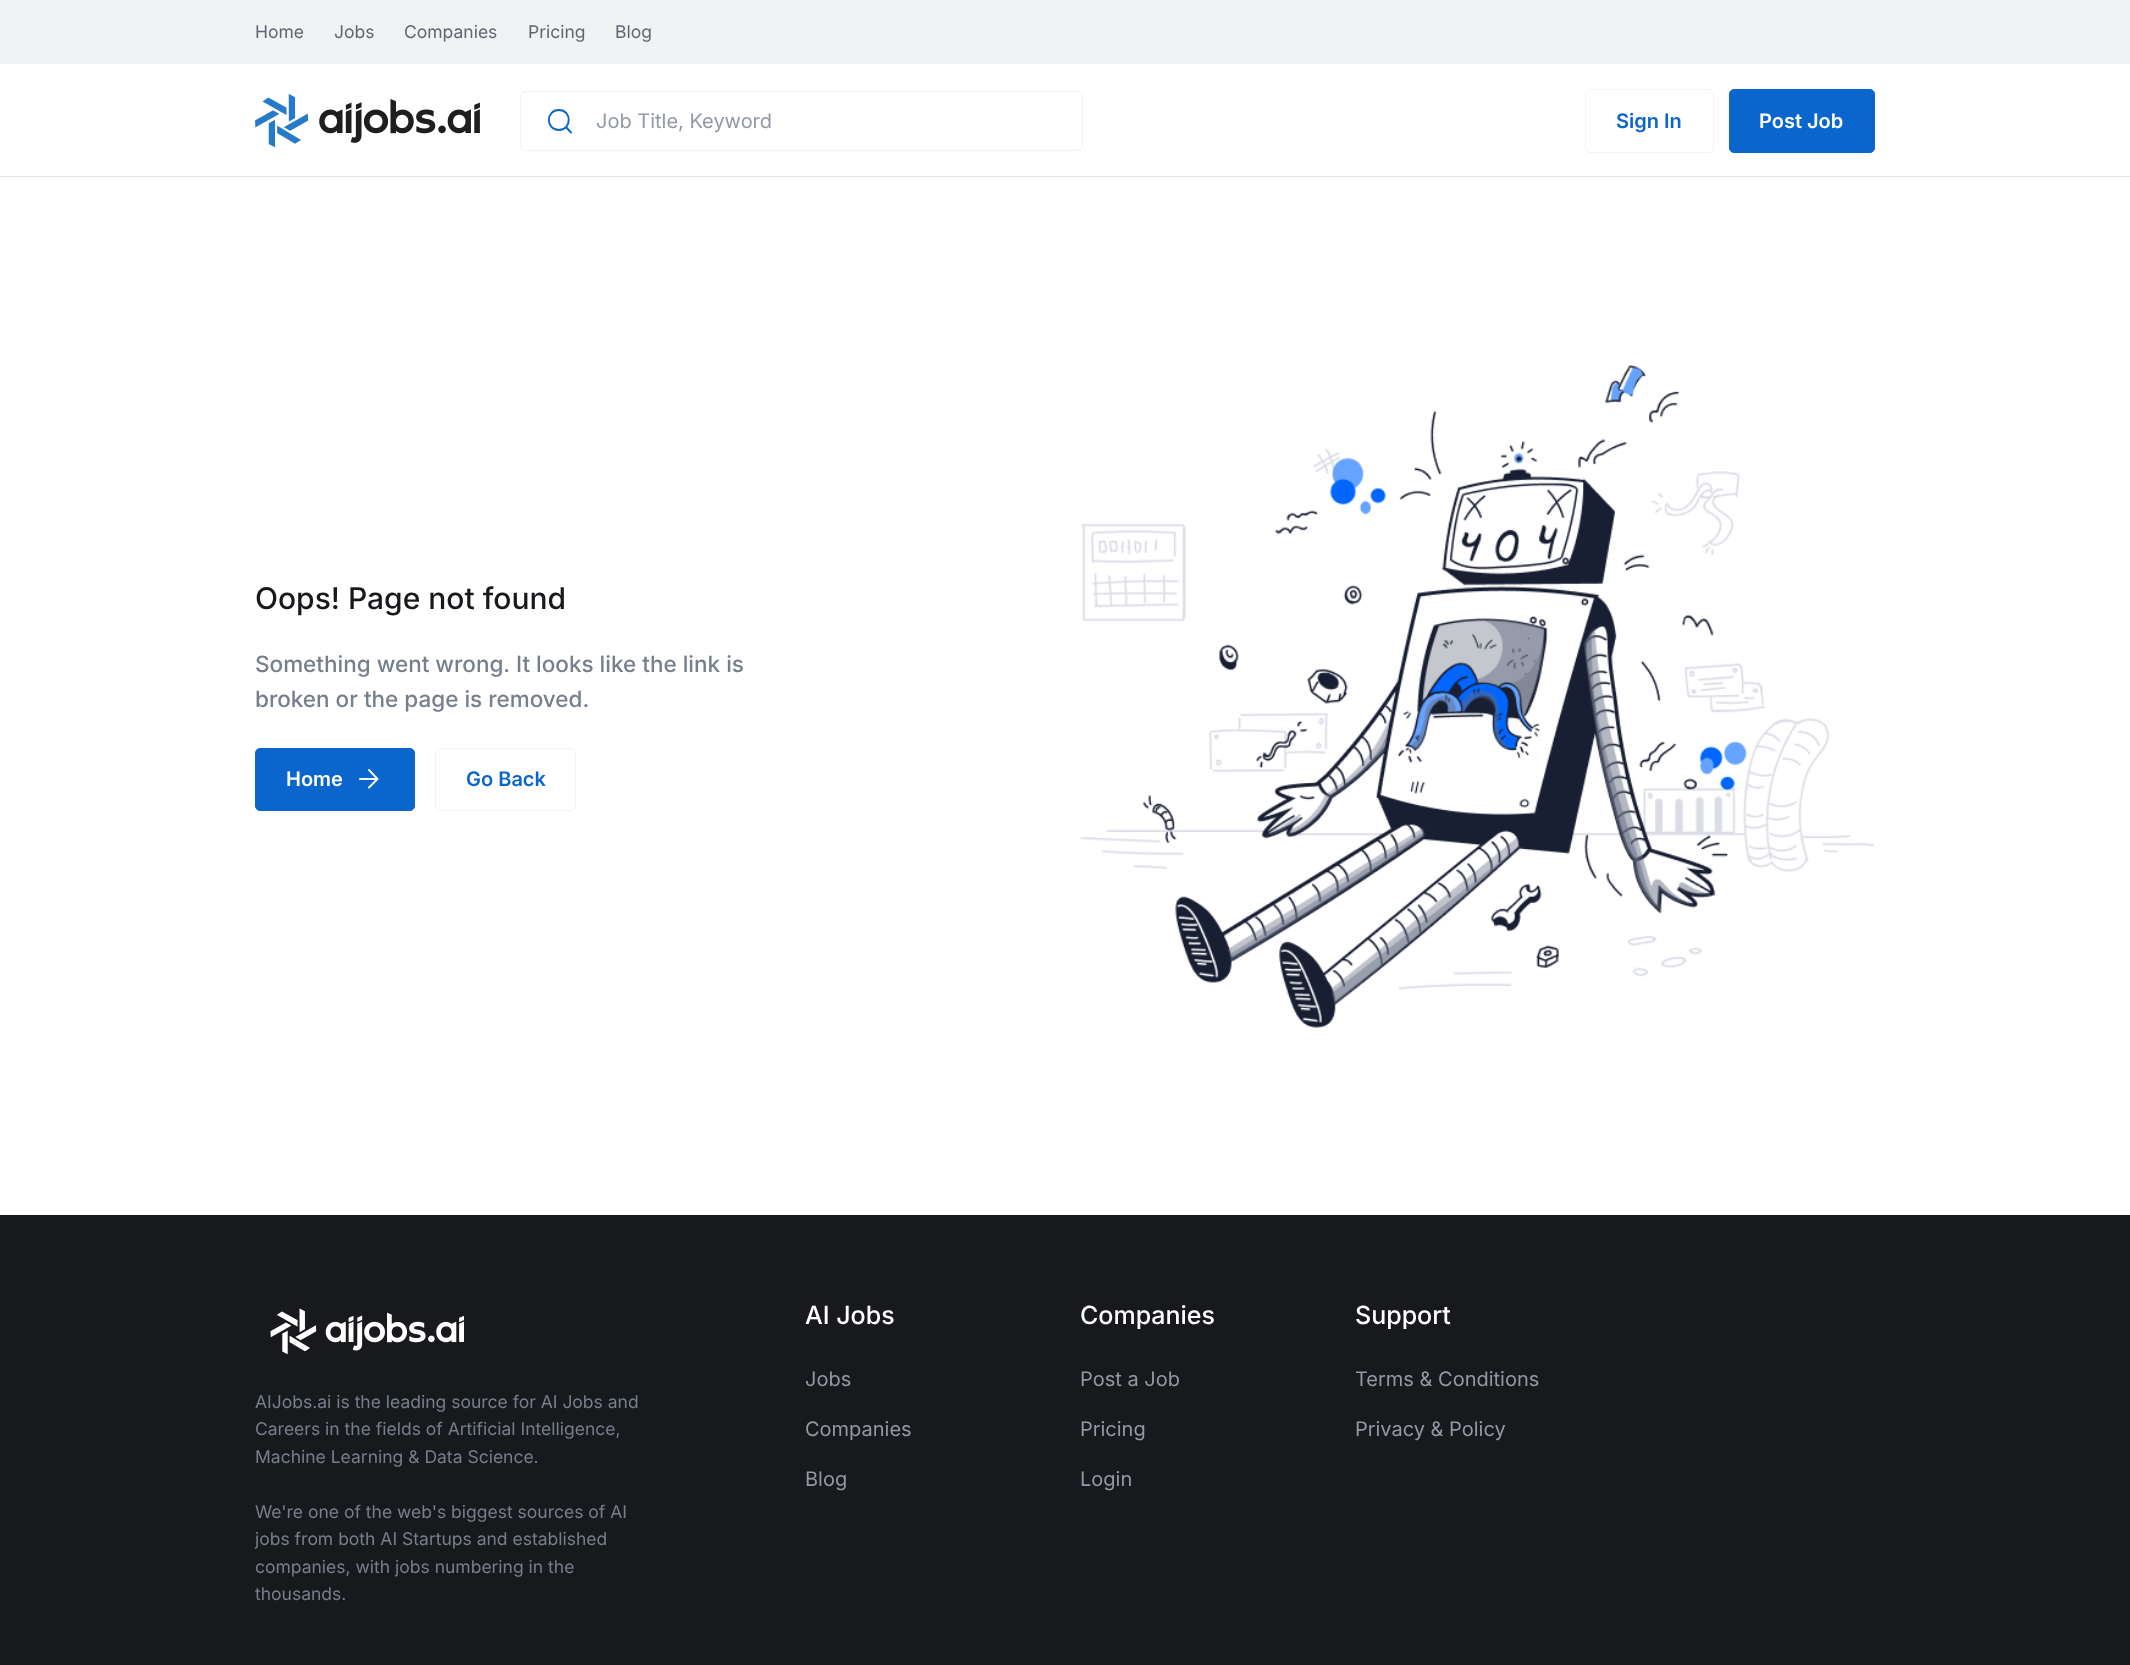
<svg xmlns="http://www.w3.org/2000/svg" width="2130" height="1665">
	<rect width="100%" height="100%" fill="#FFFFFF" />
	<rect x="0" y="0" width="2130" height="64" fill="#F1F2F4" />
	<g font-family="Inter" font-size="17.5" fill="#5E6670">
		<text x="255" y="38">Home</text>
		<text x="334" y="38">Jobs</text>
		<text x="404" y="38">Companies</text>
		<text x="528" y="38">Pricing</text>
		<text x="615" y="38">Blog</text>
	</g>
	<rect x="0" y="176" width="2130" height="1" fill="#E4E5E8" />
	<image x="255" y="94" width="225" height="54" href="assets/img1.png" />
	<rect x="520.5" y="91.5" width="562" height="59" rx="5.5" fill="none" stroke="#F1F2F4" />
	<path d="M559 130C572 130 572 110 559 110C545.5 110 545.5 130 559 130ZM571 132.5L566 127" fill="none" stroke="#0A65CC" stroke-width="1.9" stroke-linecap="round" stroke-linejoin="round" />
	<text x="596" y="128" font-family="Inter" font-size="20" fill="#9199A3">Job Title, Keyword</text>
	<rect x="1585.5" y="89.5" width="128" height="63" rx="4.5" fill="none" stroke="#EEF5FC" />
	<text x="1616" y="128" font-family="Inter" font-size="20" font-weight="600" fill="#0A65CC">Sign In</text>
	<rect x="1729.5" y="89.5" width="145" height="63" rx="4.5" fill="#0A65CC" stroke="#0A65CC" />
	<text x="1759" y="128" font-family="Inter" font-size="20" font-weight="600" fill="#FFFFFF">Post Job</text>
	<text x="255" y="609" font-family="Inter" font-size="30" font-weight="500" fill="#18191C">Oops! Page not found</text>
	<g font-family="Inter" font-size="22.5" font-weight="500" fill="#767F8C">
		<text x="255" y="672">Something went wrong. It looks like the link is</text>
		<text x="255" y="707">broken or the page is removed.</text>
	</g>
	<rect x="255.5" y="748.5" width="159" height="62" rx="4.5" fill="#0A65CC" stroke="#0A65CC" />
	<text x="286" y="786" font-family="Inter" font-size="20" font-weight="600" fill="#FFFFFF">Home</text>
	<path d="M360 779H377.5M369 770L377.5 779L369 787.5" fill="none" stroke="#FFFFFF" stroke-width="1.9" stroke-linecap="round" stroke-linejoin="round" />
	<rect x="435.5" y="748.5" width="140" height="62" rx="4.5" fill="none" stroke="#EEF5FC" />
	<text x="466" y="786" font-family="Inter" font-size="20" font-weight="600" fill="#0A65CC">Go Back</text>
	<image x="1080" y="365" width="794" height="663" href="assets/img2.png" />
	<rect x="0" y="1215" width="2130" height="450" fill="#18191C" />
	<text x="805" y="1324" font-family="Inter" font-size="25" font-weight="500" fill="#FFFFFF">AI Jobs</text>
	<g font-family="Inter" font-size="20" fill="#9199A3">
		<text x="805" y="1386">Jobs</text>
		<text x="805" y="1436">Companies</text>
		<text x="805" y="1486">Blog</text>
	</g>
	<text x="1080" y="1324" font-family="Inter" font-size="25" font-weight="500" fill="#FFFFFF">Companies</text>
	<g font-family="Inter" font-size="20" fill="#9199A3">
		<text x="1080" y="1386">Post a Job</text>
		<text x="1080" y="1436">Pricing</text>
		<text x="1080" y="1486">Login</text>
	</g>
	<text x="1355" y="1324" font-family="Inter" font-size="25" font-weight="500" fill="#FFFFFF">Support</text>
	<g font-family="Inter" font-size="20" fill="#9199A3">
		<text x="1355" y="1386">Terms &amp; Conditions</text>
		<text x="1355" y="1436">Privacy &amp; Policy</text>
	</g>
	<image x="270" y="1308" width="194" height="47" href="assets/img3.png" />
	<g font-family="Inter" font-size="17.5" fill="#767F8C">
		<text x="255" y="1408">AIJobs.ai is the leading source for AI Jobs and</text>
		<text x="255" y="1435">Careers in the fields of Artificial Intelligence,</text>
		<text x="255" y="1463">Machine Learning &amp; Data Science.</text>
		<text x="255" y="1518">We're one of the web's biggest sources of AI</text>
		<text x="255" y="1545">jobs from both AI Startups and established</text>
		<text x="255" y="1573">companies, with jobs numbering in the</text>
		<text x="255" y="1600">thousands.</text>
	</g>
</svg>
